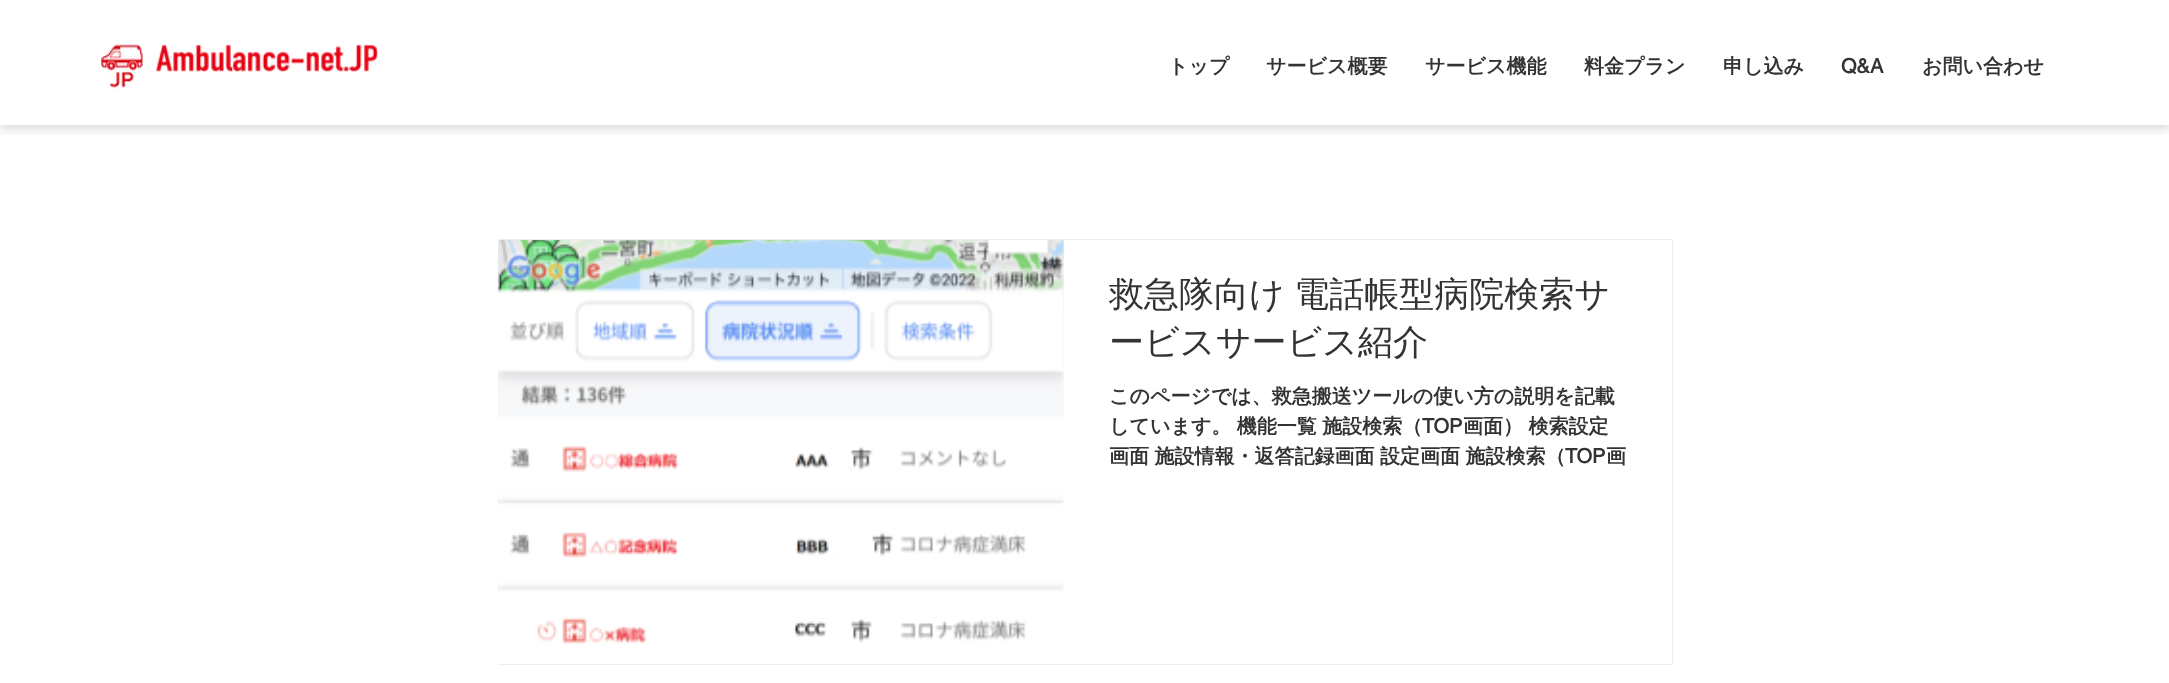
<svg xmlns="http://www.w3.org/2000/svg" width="2169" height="683">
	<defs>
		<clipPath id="clip1"><rect x="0" y="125" width="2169" height="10" /></clipPath>
	</defs>
	<rect width="100%" height="100%" fill="#FFFFFF" />
	<g clip-path="url(#clip1)">
		<rect x="0" y="4" width="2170" height="125" fill="#000000" fill-opacity="0.15" filter="blur(5.5px)" />
	</g>
	<image x="101" y="44" width="42" height="45" href="assets/img1.png" />
	<image x="156" y="44" width="222" height="28" href="assets/img2.png" />
	<g font-family="WenQuanYi Zen Hei" font-size="20" font-weight="700" fill="#333333">
		<text x="1168" y="73">トップ</text>
		<text x="1266" y="73">サービス概要</text>
		<text x="1425" y="73">サービス機能</text>
		<text x="1584" y="73">料金プラン</text>
		<text x="1723" y="73">申し込み</text>
	</g>
	<text x="1841" y="73" font-family="helvetica" font-size="20" font-weight="700" fill="#333333">Q&amp;A</text>
	<text x="1922" y="73" font-family="WenQuanYi Zen Hei" font-size="20" font-weight="700" fill="#333333">お問い合わせ</text>
	<rect x="498.5" y="239.5" width="1174" height="425" fill="none" stroke="#EEECEC" />
	<image x="499" y="240" width="565" height="424" href="assets/img4.png" />
	<image x="498" y="240" width="566" height="424" href="assets/img3.png" />
	<g font-family="WenQuanYi Zen Hei" font-size="35" font-weight="500" fill="#333333">
		<text x="1109" y="306" word-spacing="-1">救急隊向け 電話帳型病院検索サ</text>
		<text x="1109" y="354">ービスサービス紹介</text>
	</g>
	<g font-family="WenQuanYi Zen Hei" font-size="20" font-weight="700" fill="#333333">
		<text x="1109" y="403">このページでは、救急搬送ツールの使い方の説明を記載</text>
		<text x="1109" y="433" word-spacing="-0.5">しています。 機能一覧 施設検索（</text>
	</g>
	<text x="1422" y="433" font-family="helvetica" font-size="20" font-weight="700" fill="#333333">TOP</text>
	<g font-family="WenQuanYi Zen Hei" font-size="20" font-weight="700" fill="#333333">
		<text x="1463" y="433" word-spacing="-0.5">画面） 検索設定</text>
		<text x="1109" y="463" word-spacing="-0.5">画面 施設情報・返答記録画面 設定画面 施設検索（</text>
	</g>
	<text x="1565" y="463" font-family="helvetica" font-size="20" font-weight="700" fill="#333333">TOP</text>
	<text x="1606" y="463" font-family="WenQuanYi Zen Hei" font-size="20" font-weight="700" fill="#333333">画</text>
</svg>
